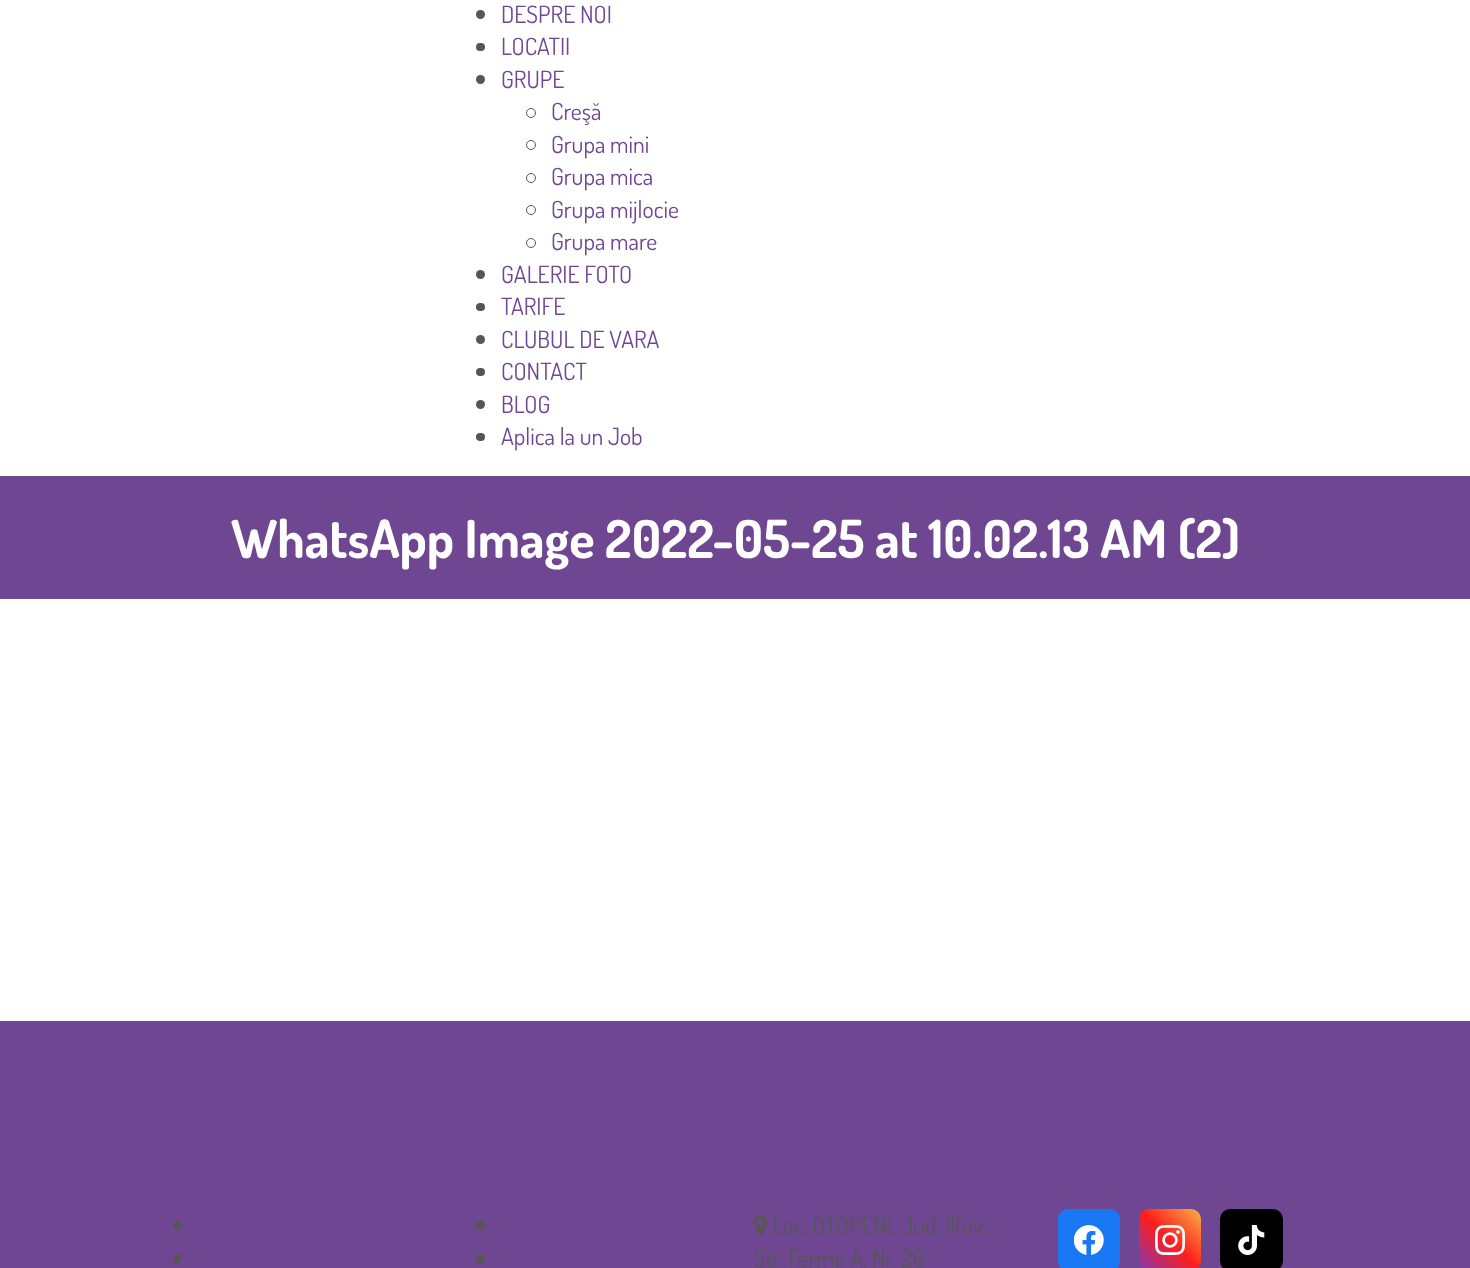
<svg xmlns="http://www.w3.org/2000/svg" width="1470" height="1268">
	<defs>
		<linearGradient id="g1" gradientUnits="userSpaceOnUse" x1="1139" y1="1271" x2="1201" y2="1209"><stop offset="0" stop-color="#833AB4" /><stop offset="0.5" stop-color="#FD1D1D" /><stop offset="1" stop-color="#FCB045" /></linearGradient>
	</defs>
	<rect width="100%" height="100%" fill="#FFFFFF" />
	<circle cx="480.5" cy="14.5" r="4.5" fill="#575656" />
	<text x="501" y="23" font-family="Dosis" font-size="23.75" fill="#6F4792">DESPRE NOI</text>
	<rect x="476" y="43" width="9" height="8" rx="4" fill="#575656" />
	<text x="501" y="55" font-family="Dosis" font-size="23.75" fill="#6F4792">LOCATII</text>
	<circle cx="480.5" cy="79.5" r="4.5" fill="#575656" />
	<text x="501" y="88" font-family="Dosis" font-size="23.75" fill="#6F4792">GRUPE</text>
	<circle cx="531" cy="113" r="4.5" fill="none" stroke="#575656" />
	<text x="551" y="120" font-family="Dosis" font-size="23.75" fill="#6F4792">Creşă</text>
	<circle cx="531" cy="145" r="4.5" fill="none" stroke="#575656" />
	<text x="551" y="153" font-family="Dosis" font-size="23.75" fill="#6F4792">Grupa mini</text>
	<circle cx="531" cy="178" r="4.5" fill="none" stroke="#575656" />
	<text x="551" y="185" font-family="Dosis" font-size="23.75" fill="#6F4792">Grupa mica</text>
	<circle cx="531" cy="210" r="4.5" fill="none" stroke="#575656" />
	<text x="551" y="218" font-family="Dosis" font-size="23.75" fill="#6F4792">Grupa mijlocie</text>
	<circle cx="531" cy="243" r="4.5" fill="none" stroke="#575656" />
	<text x="551" y="250" font-family="Dosis" font-size="23.75" fill="#6F4792">Grupa mare</text>
	<circle cx="480.5" cy="274.5" r="4.5" fill="#575656" />
	<text x="501" y="283" font-family="Dosis" font-size="23.75" fill="#6F4792">GALERIE FOTO</text>
	<rect x="476" y="303" width="9" height="8" rx="4" fill="#575656" />
	<text x="501" y="315" font-family="Dosis" font-size="23.75" fill="#6F4792">TARIFE</text>
	<circle cx="480.5" cy="339.5" r="4.5" fill="#575656" />
	<text x="501" y="348" font-family="Dosis" font-size="23.75" fill="#6F4792">CLUBUL DE VARA</text>
	<rect x="476" y="368" width="9" height="8" rx="4" fill="#575656" />
	<text x="501" y="380" font-family="Dosis" font-size="23.75" fill="#6F4792">CONTACT</text>
	<circle cx="480.5" cy="404.5" r="4.5" fill="#575656" />
	<text x="501" y="413" font-family="Dosis" font-size="23.75" fill="#6F4792">BLOG</text>
	<rect x="476" y="433" width="9" height="8" rx="4" fill="#575656" />
	<text x="501" y="445" font-family="Dosis" font-size="23.75" fill="#6F4792">Aplica la un Job</text>
	<rect x="0" y="476" width="1470" height="123" fill="#6E4692" />
	<text x="231" y="558" font-family="Dosis" font-size="52.5" font-weight="700" fill="#FFFFFF">WhatsApp Image 2022-05-25 at 10.02.13 AM (2)</text>
	<rect x="0" y="1021" width="1470" height="247" fill="#6E4692" />
	<rect x="173" y="1221" width="8" height="9" rx="4" fill="#575656" />
	<rect x="173" y="1254" width="8" height="9" rx="4" fill="#575656" />
	<circle cx="480.5" cy="1225.5" r="4.5" fill="#575656" />
	<circle cx="480.5" cy="1258.5" r="4.5" fill="#575656" />
	<image x="753" y="1215" width="15" height="21" href="assets/img1.png" />
	<g font-family="Dosis" font-size="23.75" fill="#575656">
		<text x="772" y="1234">Loc. OTOPENI, Jud. Ilfov,</text>
		<text x="754" y="1267">Str. Ferme A, Nr. 26</text>
	</g>
	<rect x="1058" y="1209" width="62" height="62" rx="10" fill="#1877F2" />
	<image x="1074" y="1225" width="30" height="30" href="assets/img2.png" />
	<rect x="1139" y="1209" width="62" height="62" rx="10" fill="url(#g1)" />
	<image x="1155" y="1225" width="30" height="30" href="assets/img3.png" />
	<rect x="1220" y="1209" width="63" height="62" rx="10" fill="#000000" />
	<image x="1238" y="1225" width="27" height="30" href="assets/img4.png" />
</svg>
